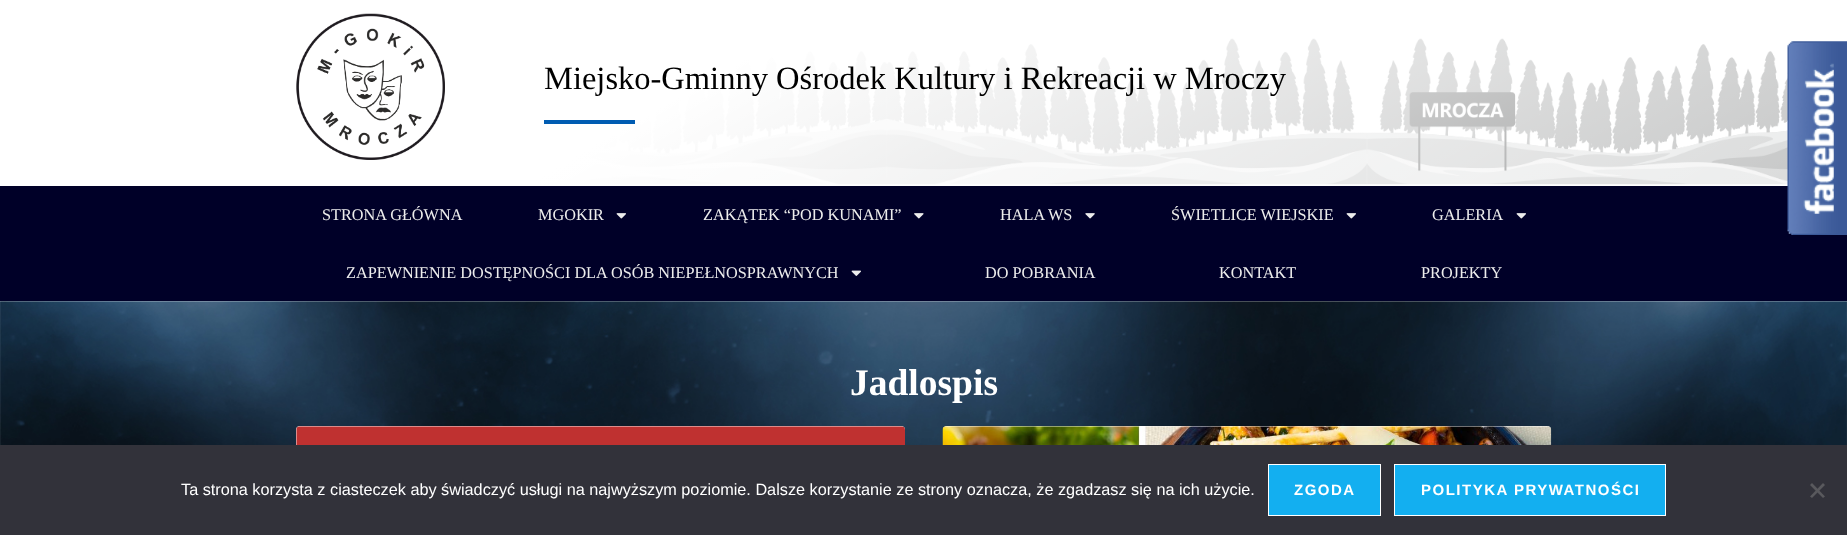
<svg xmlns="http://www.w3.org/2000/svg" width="1847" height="535">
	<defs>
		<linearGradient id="g1" gradientUnits="userSpaceOnUse" x1="653" y1="-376" x2="1194" y2="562"><stop offset="0.39" stop-color="#FFFFFF" /><stop offset="1" stop-color="#FFFFFF" stop-opacity="0" /></linearGradient>
	</defs>
	<rect width="100%" height="100%" fill="#FFFFFF" />
	<image x="534" y="38" width="1254" height="147" href="assets/img1.png" />
	<rect x="534" y="38" width="1254" height="147" fill="url(#g1)" />
	<image x="296" y="13" width="149" height="147" href="assets/img2.png" />
	<text x="544" y="89" font-family="Liberation Serif" font-size="32.5" fill="#000000">Miejsko-Gminny Ośrodek Kultury i Rekreacji w Mroczy</text>
	<rect x="544" y="120" width="91" height="4" fill="#005CB2" />
	<rect x="0" y="186" width="1847" height="115" fill="#000028" />
	<g font-family="Liberation Serif" font-size="16.25" fill="#EDEDED">
		<text x="322" y="220">STRONA GŁÓWNA</text>
		<text x="538" y="220">MGOKIR</text>
	</g>
	<image x="616" y="213" width="10" height="6" href="assets/img3.png" />
	<text x="703" y="220" font-family="Liberation Serif" font-size="16.25" fill="#EDEDED">ZAKĄTEK “POD KUNAMI”</text>
	<image x="914" y="213" width="10" height="6" href="assets/img4.png" />
	<text x="1000" y="220" font-family="Liberation Serif" font-size="16.25" fill="#EDEDED">HALA WS</text>
	<image x="1085" y="213" width="10" height="6" href="assets/img5.png" />
	<text x="1171" y="220" font-family="Liberation Serif" font-size="16.25" fill="#EDEDED">ŚWIETLICE WIEJSKIE</text>
	<image x="1346" y="213" width="10" height="6" href="assets/img3.png" />
	<text x="1432" y="220" font-family="Liberation Serif" font-size="16.25" fill="#EDEDED">GALERIA</text>
	<image x="1516" y="213" width="10" height="6" href="assets/img3.png" />
	<text x="346" y="278" font-family="Liberation Serif" font-size="16.25" fill="#EDEDED">ZAPEWNIENIE DOSTĘPNOŚCI DLA OSÓB NIEPEŁNOSPRAWNYCH</text>
	<image x="851" y="270" width="10" height="6" href="assets/img6.png" />
	<g font-family="Liberation Serif" font-size="16.25" fill="#EDEDED">
		<text x="985" y="278">DO POBRANIA</text>
		<text x="1219" y="278">KONTAKT</text>
		<text x="1421" y="278">PROJEKTY</text>
	</g>
	<image x="0" y="301" width="1847" height="144" href="assets/img7.png" />
	<text x="850" y="395" font-family="Liberation Serif" font-size="37.5" font-weight="700" fill="#FFFFFF">Jadlospis</text>
	<rect x="296" y="426" width="609" height="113" rx="4" fill="#FFFFFF" />
	<image x="296" y="426" width="609" height="19" href="assets/img8.png" />
	<rect x="943" y="426" width="608" height="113" rx="4" fill="#FFFFFF" />
	<image x="942" y="426" width="610" height="19" href="assets/img9.png" />
	<image x="1787" y="41" width="60" height="194" href="assets/img10.png" />
	<rect x="0" y="445" width="1847" height="90" fill="#32323A" />
	<text x="181" y="495" font-family="Liberation Sans" font-size="16.25" fill="#FFFFFF">Ta strona korzysta z ciasteczek aby świadczyć usługi na najwyższym poziomie. Dalsze korzystanie ze strony oznacza, że zgadzasz się na ich użycie.</text>
	<rect x="1268.5" y="464.5" width="112" height="51" fill="#13AFF0" stroke="#FFFFFF" />
	<text x="1294" y="495" font-family="Liberation Sans" font-size="15" font-weight="700" letter-spacing="1.5" fill="#FFFFFF">ZGODA</text>
	<rect x="1394.5" y="464.5" width="271" height="51" fill="#13AFF0" stroke="#FFFFFF" />
	<text x="1421" y="495" font-family="Liberation Sans" font-size="15" font-weight="700" letter-spacing="1.5" fill="#FFFFFF">POLITYKA PRYWATNOŚCI</text>
	<path d="M1823 483L1825 485L1812 498L1810 496.5Z" fill="#59595D" />
	<path d="M1810 485L1812 483L1825 496.5L1823 498Z" fill="#59595D" />
</svg>
